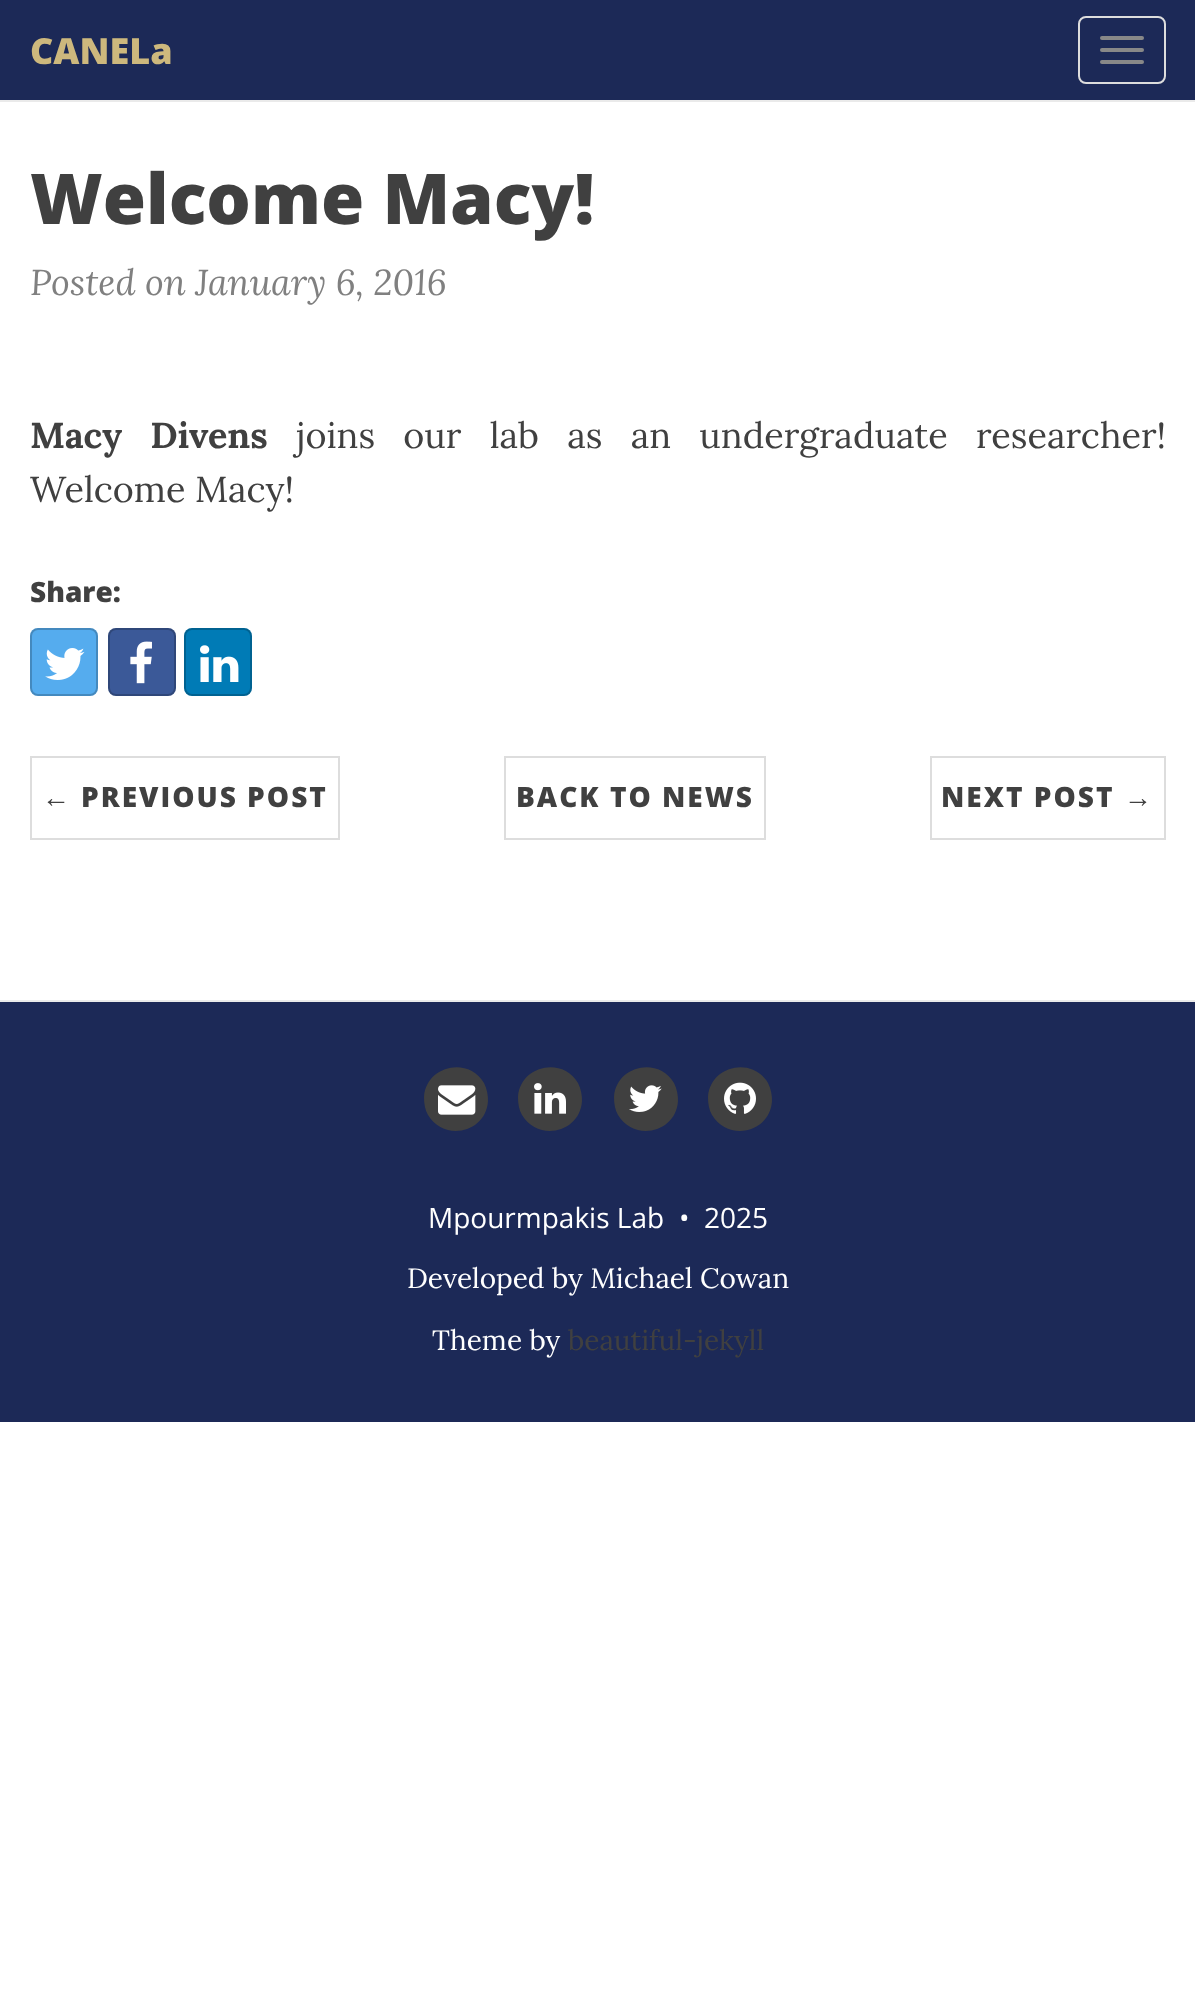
<svg xmlns="http://www.w3.org/2000/svg" width="1195" height="1999">
	<rect width="100%" height="100%" fill="#FFFFFF" />
	<rect x="0" y="0" width="1195" height="100" fill="#1C2957" />
	<rect x="0" y="100" width="1195" height="2" fill="#EAEAEA" />
	<text x="30" y="64" font-family="Open Sans" font-size="36" font-weight="800" fill="#CDB87D">CANELa</text>
	<rect x="1079" y="17" width="86" height="66" rx="7" fill="none" stroke="#DDDDDD" stroke-width="2" />
	<rect x="1100" y="36" width="44" height="4" rx="2" fill="#888888" />
	<rect x="1100" y="48" width="44" height="4" rx="2" fill="#888888" />
	<rect x="1100" y="60" width="44" height="4" rx="2" fill="#888888" />
	<text x="30" y="224" font-family="Open Sans" font-size="70" font-weight="800" fill="#404040">Welcome Macy!</text>
	<text x="30" y="295" font-family="Lora" font-size="36" font-style="italic" fill="#808080">Posted on January 6, 2016</text>
	<text x="30" y="448" word-spacing="18.75" font-family="Lora" font-size="36" font-weight="700" fill="#404040">Macy Divens</text>
	<g font-family="Lora" font-size="36" fill="#404040">
		<text x="296" y="448" word-spacing="18.75">joins our lab as an undergraduate researcher!</text>
		<text x="30" y="502">Welcome Macy!</text>
	</g>
	<text x="30" y="602" font-family="Open Sans" font-size="28" font-weight="800" fill="#404040">Share:</text>
	<rect x="30" y="628" width="68" height="68" rx="8" fill="#55ACEE" />
	<rect x="31" y="629" width="66" height="66" rx="7" fill="none" stroke="#000000" stroke-opacity="0.2" stroke-width="2" />
	<image x="45" y="648" width="40" height="32" href="assets/img1.png" />
	<rect x="108" y="628" width="68" height="68" rx="8" fill="#3B5998" />
	<rect x="109" y="629" width="66" height="66" rx="7" fill="none" stroke="#000000" stroke-opacity="0.2" stroke-width="2" />
	<image x="130" y="641" width="22" height="43" href="assets/img2.png" />
	<rect x="184" y="628" width="68" height="68" rx="8" fill="#007BB6" />
	<rect x="185" y="629" width="66" height="66" rx="7" fill="none" stroke="#000000" stroke-opacity="0.2" stroke-width="2" />
	<image x="200" y="645" width="39" height="37" href="assets/img3.png" />
	<rect x="31" y="757" width="308" height="82" fill="none" stroke="#DDDDDD" stroke-width="2" />
	<text x="42" y="807" font-family="Liberation Sans" font-size="28" font-weight="700" letter-spacing="2" fill="#404040">←</text>
	<text x="81" y="807" font-family="Open Sans" font-size="28" font-weight="800" letter-spacing="2" fill="#404040">PREVIOUS POST</text>
	<rect x="505" y="757" width="260" height="82" fill="none" stroke="#DDDDDD" stroke-width="2" />
	<text x="516" y="807" font-family="Open Sans" font-size="28" font-weight="800" letter-spacing="2" fill="#404040">BACK TO NEWS</text>
	<rect x="931" y="757" width="234" height="82" fill="none" stroke="#DDDDDD" stroke-width="2" />
	<text x="941" y="807" font-family="Open Sans" font-size="28" font-weight="800" letter-spacing="2" fill="#404040">NEXT POST</text>
	<text x="1124" y="807" font-family="Liberation Sans" font-size="28" font-weight="700" letter-spacing="2" fill="#404040">→</text>
	<rect x="0" y="1002" width="1195" height="420" fill="#1C2957" />
	<rect x="0" y="1000" width="1195" height="2" fill="#EAEAEA" />
	<path d="M484 1083C487 1089 488 1095 488 1101C486 1133 444 1142 428 1115C425 1110 424 1104 424 1097C426 1066 468 1056 484 1083Z" fill="#404040" />
	<image x="438" y="1085" width="38" height="30" href="assets/img4.png" />
	<path d="M578 1083C581 1089 582 1095 582 1101C580 1133 538 1142 522 1115C519 1110 518 1104 518 1097C520 1066 562 1056 578 1083Z" fill="#404040" />
	<image x="534" y="1083" width="32" height="31" href="assets/img5.png" />
	<path d="M674 1083C677 1089 678 1095 678 1101C676 1133 634 1142 618 1115C615 1110 614 1104 614 1097C616 1066 658 1056 674 1083Z" fill="#404040" />
	<image x="629" y="1085" width="33" height="27" href="assets/img6.png" />
	<path d="M768 1083C771 1089 772 1095 772 1101C770 1133 728 1142 712 1115C709 1110 708 1104 708 1097C710 1066 752 1056 768 1083Z" fill="#404040" />
	<image x="724" y="1082" width="32" height="32" href="assets/img7.png" />
	<g font-family="Open Sans" font-size="28" fill="#FFFFFF">
		<text x="428" y="1228">Mpourmpakis Lab</text>
		<text x="679" y="1228">•</text>
		<text x="704" y="1228">2025</text>
	</g>
	<g font-family="Lora" font-size="28" fill="#FFFFFF">
		<text x="407" y="1288">Developed by Michael Cowan</text>
		<text x="432" y="1350">Theme by</text>
	</g>
	<text x="568" y="1350" font-family="Lora" font-size="28" fill="#404040">beautiful-jekyll</text>
</svg>
